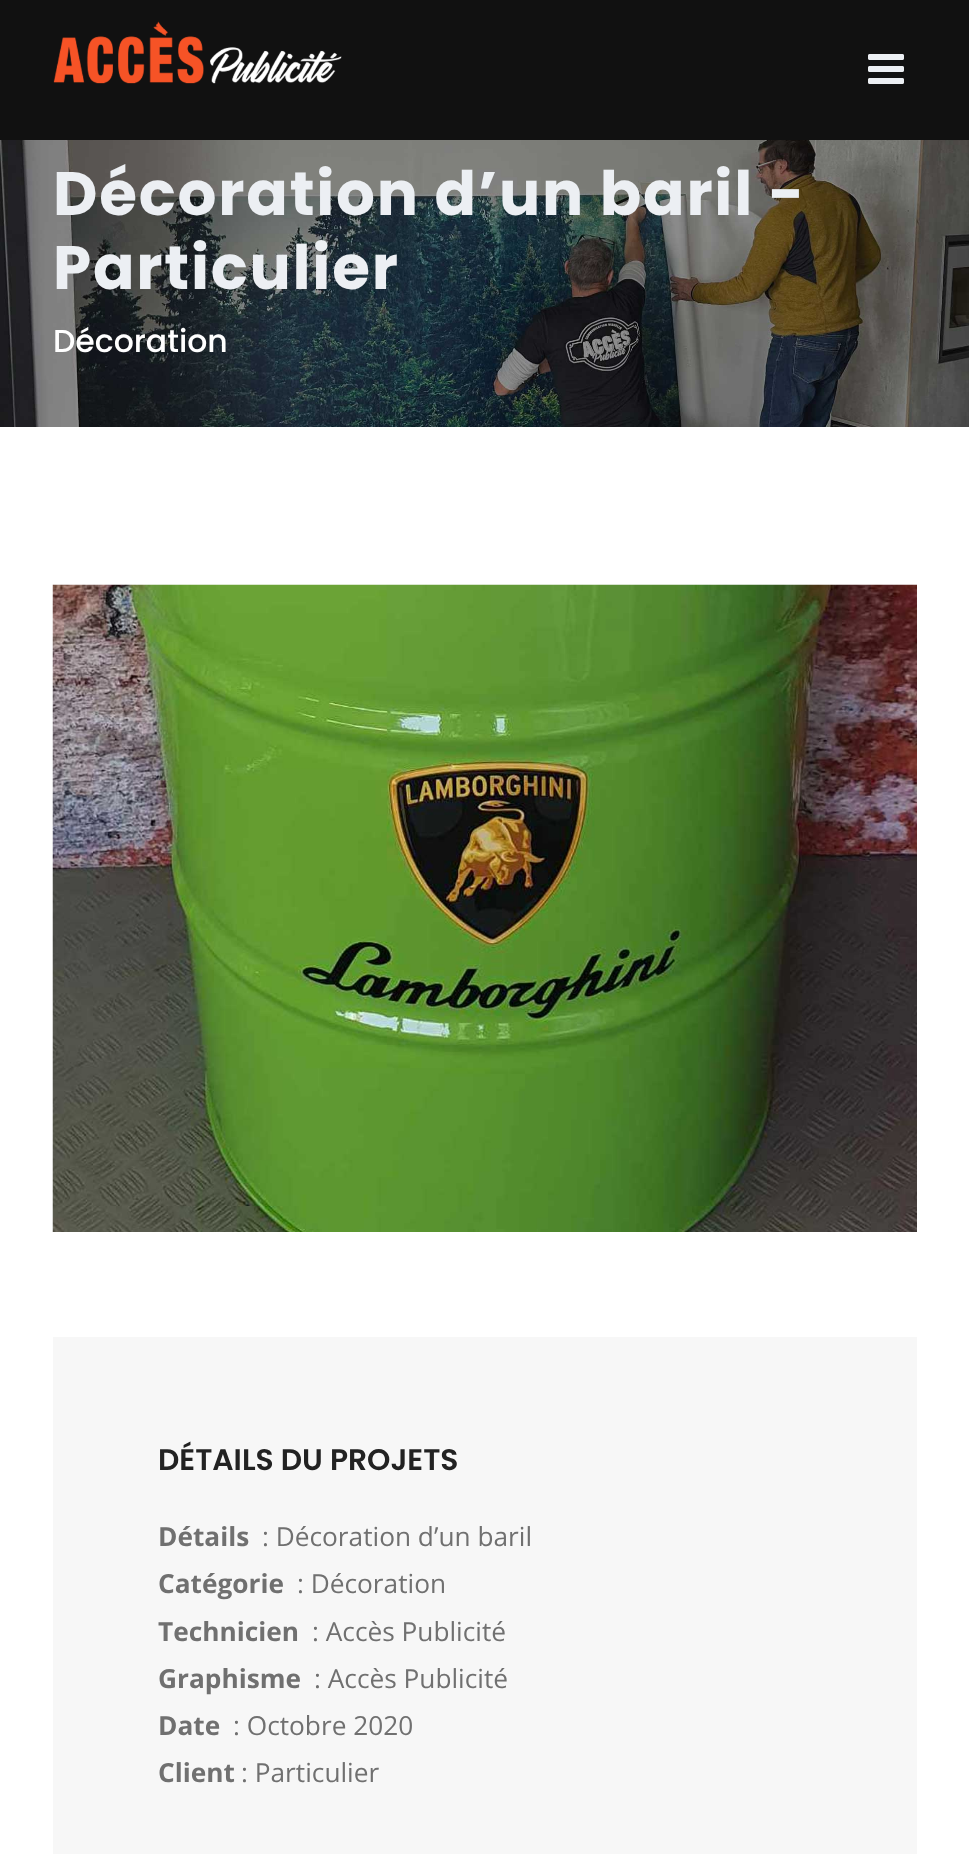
<svg xmlns="http://www.w3.org/2000/svg" width="969" height="1854">
	<rect width="100%" height="100%" fill="#FFFFFF" />
	<rect x="0" y="0" width="969" height="140" fill="#111111" />
	<image x="53" y="21" width="289" height="63" href="assets/img1.png" />
	<image x="868" y="54" width="36" height="30" href="assets/img2.png" />
	<image x="0" y="140" width="969" height="287" href="assets/img3.png" />
	<g font-family="Poppins" font-size="61.25" font-weight="700" letter-spacing="1.75" fill="#ECEFF3">
		<text x="53" y="215">Décoration d’un baril -</text>
		<text x="53" y="289">Particulier</text>
	</g>
	<text x="53" y="352" font-family="Poppins" font-size="31.5" font-weight="500" fill="#FFFFFF">Décoration</text>
	<image x="52" y="584" width="865" height="648" href="assets/img4.png" />
	<rect x="53" y="1337" width="864" height="517" fill="#F7F7F7" />
	<text x="158" y="1470" font-family="Poppins" font-size="29.75" font-weight="600" fill="#222222">DÉTAILS DU PROJETS</text>
	<text x="158" y="1546" font-family="Open Sans" font-size="26.25" font-weight="700" fill="#707070">Détails</text>
	<text x="262" y="1546" font-family="Open Sans" font-size="26.25" fill="#707070">: Décoration d’un baril</text>
	<text x="158" y="1593" font-family="Open Sans" font-size="26.25" font-weight="700" fill="#707070">Catégorie</text>
	<text x="297" y="1593" font-family="Open Sans" font-size="26.25" fill="#707070">: Décoration</text>
	<text x="158" y="1641" font-family="Open Sans" font-size="26.25" font-weight="700" fill="#707070">Technicien</text>
	<text x="312" y="1641" font-family="Open Sans" font-size="26.25" fill="#707070">: Accès Publicité</text>
	<text x="158" y="1688" font-family="Open Sans" font-size="26.25" font-weight="700" fill="#707070">Graphisme</text>
	<text x="314" y="1688" font-family="Open Sans" font-size="26.25" fill="#707070">: Accès Publicité</text>
	<text x="158" y="1735" font-family="Open Sans" font-size="26.25" font-weight="700" fill="#707070">Date</text>
	<text x="233" y="1735" font-family="Open Sans" font-size="26.25" fill="#707070">: Octobre 2020</text>
	<text x="158" y="1782" font-family="Open Sans" font-size="26.25" font-weight="700" fill="#707070">Client</text>
	<text x="241" y="1782" font-family="Open Sans" font-size="26.25" fill="#707070">: Particulier</text>
</svg>
